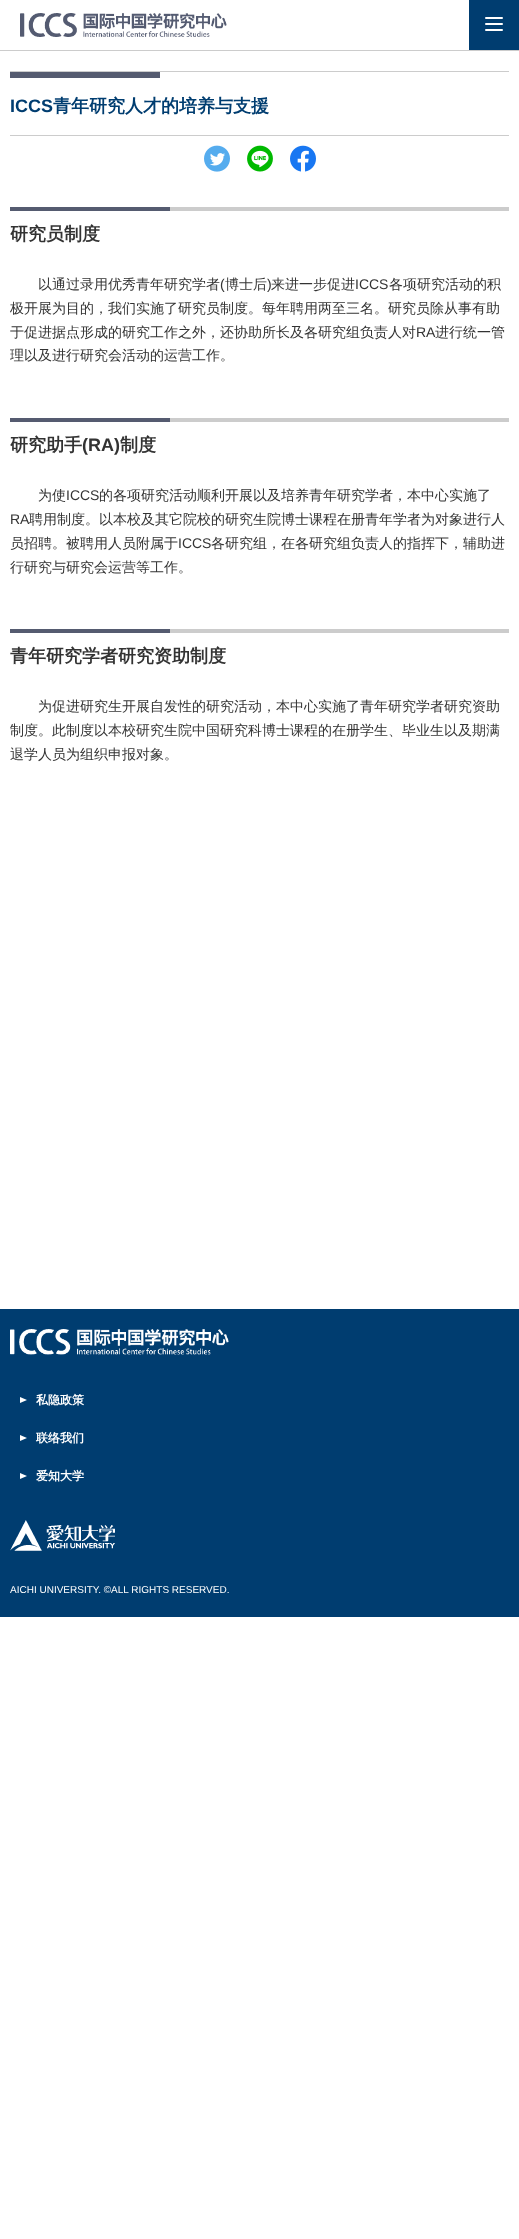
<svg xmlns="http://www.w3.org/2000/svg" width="519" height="2239">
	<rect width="100%" height="100%" fill="#FFFFFF" />
	<rect x="0" y="50" width="519" height="1" fill="#CCCCCC" />
	<image x="20" y="13" width="207" height="24" href="assets/img1.png" />
	<rect x="469" y="0" width="50" height="50" fill="#003D70" />
	<rect x="485" y="23" width="18" height="2" rx="1" fill="#FFFFFF" />
	<rect x="485" y="17" width="18" height="2" rx="1" fill="#FFFFFF" />
	<rect x="485" y="29" width="18" height="2" rx="1" fill="#FFFFFF" />
	<rect x="10" y="71" width="499" height="1" fill="#CCCCCC" />
	<rect x="10" y="135" width="499" height="1" fill="#CCCCCC" />
	<rect x="10" y="72" width="150" height="6" fill="#555B70" />
	<text x="10" y="112" font-family="Liberation Sans" font-size="18" font-weight="700" fill="#003D70">ICCS</text>
	<text x="53" y="112" font-family="WenQuanYi Zen Hei" font-size="18" font-weight="700" fill="#003D70">青年研究人才的培养与支援</text>
	<image x="204" y="145" width="26" height="27" href="assets/img2.png" />
	<image x="247" y="145" width="26" height="27" href="assets/img3.png" />
	<image x="290" y="145" width="26" height="27" href="assets/img4.png" />
	<rect x="170" y="207" width="339" height="4" fill="#CCCCCC" />
	<rect x="10" y="207" width="160" height="4" fill="#555B70" />
	<text x="10" y="240" font-family="WenQuanYi Zen Hei" font-size="18" font-weight="700" fill="#333333">研究员制度</text>
	<text x="38" y="289" font-family="WenQuanYi Zen Hei" font-size="14" font-weight="500" fill="#333333">以通过录用优秀青年研究学者</text>
	<text x="220" y="289" font-family="Liberation Sans" font-size="14" fill="#333333">(</text>
	<text x="225" y="289" font-family="WenQuanYi Zen Hei" font-size="14" font-weight="500" fill="#333333">博士后</text>
	<text x="267" y="289" font-family="Liberation Sans" font-size="14" fill="#333333">)</text>
	<text x="271" y="289" font-family="WenQuanYi Zen Hei" font-size="14" font-weight="500" fill="#333333">来进一步促进</text>
	<text x="355" y="289" font-family="Liberation Sans" font-size="14" fill="#333333">ICCS</text>
	<g font-family="WenQuanYi Zen Hei" font-size="14" font-weight="500" fill="#333333">
		<text x="389" y="289">各项研究活动的积</text>
		<text x="10" y="313">极开展为目的，我们实施了研究员制度。每年聘用两至三名。研究员除从事有助</text>
		<text x="10" y="337">于促进据点形成的研究工作之外，还协助所长及各研究组负责人对</text>
	</g>
	<text x="416" y="337" font-family="Liberation Sans" font-size="14" fill="#333333">RA</text>
	<g font-family="WenQuanYi Zen Hei" font-size="14" font-weight="500" fill="#333333">
		<text x="435" y="337">进行统一管</text>
		<text x="10" y="360">理以及进行研究会活动的运营工作。</text>
	</g>
	<rect x="170" y="418" width="339" height="4" fill="#CCCCCC" />
	<rect x="10" y="418" width="160" height="4" fill="#555B70" />
	<text x="10" y="451" font-family="WenQuanYi Zen Hei" font-size="18" font-weight="700" fill="#333333">研究助手</text>
	<text x="82" y="451" font-family="Liberation Sans" font-size="18" font-weight="700" fill="#333333">(RA)</text>
	<text x="120" y="451" font-family="WenQuanYi Zen Hei" font-size="18" font-weight="700" fill="#333333">制度</text>
	<text x="38" y="500" font-family="WenQuanYi Zen Hei" font-size="14" font-weight="500" fill="#333333">为使</text>
	<text x="66" y="500" font-family="Liberation Sans" font-size="14" fill="#333333">ICCS</text>
	<text x="99" y="500" font-family="WenQuanYi Zen Hei" font-size="14" font-weight="500" fill="#333333">的各项研究活动顺利开展以及培养青年研究学者，本中心实施了</text>
	<text x="10" y="524" font-family="Liberation Sans" font-size="14" fill="#333333">RA</text>
	<g font-family="WenQuanYi Zen Hei" font-size="14" font-weight="500" fill="#333333">
		<text x="29" y="524">聘用制度。以本校及其它院校的研究生院博士课程在册青年学者为对象进行人</text>
		<text x="10" y="548">员招聘。被聘用人员附属于</text>
	</g>
	<text x="178" y="548" font-family="Liberation Sans" font-size="14" fill="#333333">ICCS</text>
	<g font-family="WenQuanYi Zen Hei" font-size="14" font-weight="500" fill="#333333">
		<text x="211" y="548">各研究组，在各研究组负责人的指挥下，辅助进</text>
		<text x="10" y="572">行研究与研究会运营等工作。</text>
	</g>
	<rect x="170" y="629" width="339" height="4" fill="#CCCCCC" />
	<rect x="10" y="629" width="160" height="4" fill="#555B70" />
	<text x="10" y="662" font-family="WenQuanYi Zen Hei" font-size="18" font-weight="700" fill="#333333">青年研究学者研究资助制度</text>
	<g font-family="WenQuanYi Zen Hei" font-size="14" font-weight="500" fill="#333333">
		<text x="38" y="711">为促进研究生开展自发性的研究活动，本中心实施了青年研究学者研究资助</text>
		<text x="10" y="735">制度。此制度以本校研究生院中国研究科博士课程的在册学生、毕业生以及期满</text>
		<text x="10" y="759">退学人员为组织申报对象。</text>
	</g>
	<rect x="0" y="1309" width="519" height="308" fill="#003D70" />
	<image x="10" y="1329" width="219" height="26" href="assets/img5.png" />
	<path d="M20 1403V1397L27 1400Z" fill="#FFFFFF" />
	<text x="36" y="1404" font-family="WenQuanYi Zen Hei" font-size="12" font-weight="700" fill="#FFFFFF">私隐政策</text>
	<path d="M20 1441V1435L27 1438Z" fill="#FFFFFF" />
	<text x="36" y="1442" font-family="WenQuanYi Zen Hei" font-size="12" font-weight="700" fill="#FFFFFF">联络我们</text>
	<path d="M20 1479V1473L27 1476Z" fill="#FFFFFF" />
	<text x="36" y="1480" font-family="WenQuanYi Zen Hei" font-size="12" font-weight="700" fill="#FFFFFF">爱知大学</text>
	<image x="10" y="1520" width="105" height="31" href="assets/img6.png" />
	<text x="10" y="1593" font-family="Liberation Sans" font-size="10" fill="#FFFFFF">AICHI UNIVERSITY. ©︎ALL RIGHTS RESERVED.</text>
</svg>
